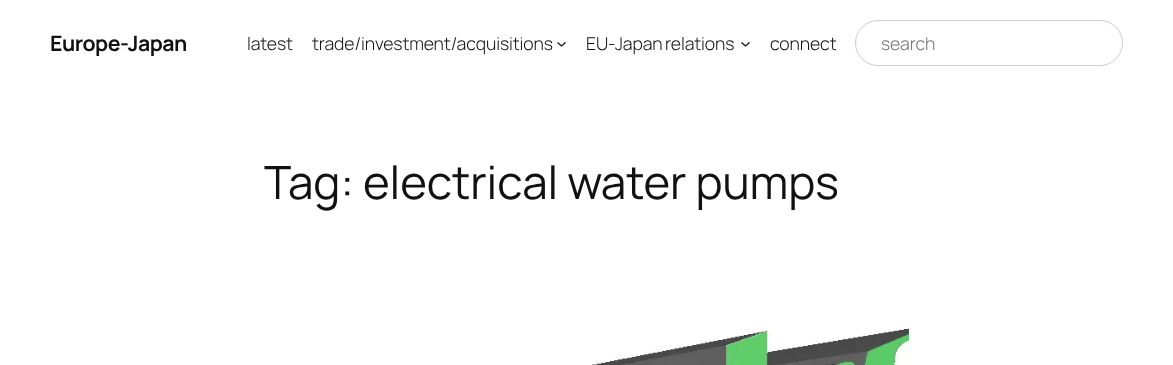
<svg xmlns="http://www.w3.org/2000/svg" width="1173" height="365">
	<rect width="100%" height="100%" fill="#FFFFFF" />
	<text x="50" y="51" font-family="Manrope" font-size="21.25" font-weight="700" letter-spacing="-0.5" fill="#111111">Europe-Japan</text>
	<g font-family="Manrope" font-size="17.7" font-weight="300" letter-spacing="-0.1" fill="#111111">
		<text x="247" y="50">latest</text>
		<text x="312" y="50">trade/investment/acquisitions</text>
	</g>
	<path d="M557.5 42.5L561.5 46L565.5 42.5" fill="none" stroke="#111111" stroke-width="1.3" />
	<text x="586" y="50" word-spacing="-1" font-family="Manrope" font-size="17.7" font-weight="300" letter-spacing="-0.1" fill="#111111">EU-Japan relations</text>
	<path d="M741.5 42.5L745.5 46L749.5 42.5" fill="none" stroke="#111111" stroke-width="1.3" />
	<text x="770" y="50" font-family="Manrope" font-size="17.7" font-weight="300" letter-spacing="-0.1" fill="#111111">connect</text>
	<rect x="855.5" y="20.5" width="267" height="45" rx="22.5" fill="none" stroke="#CCCCCC" />
	<text x="881" y="50" font-family="Manrope" font-size="17.7" font-weight="300" letter-spacing="-0.1" fill="#757575">search</text>
	<text x="264" y="199" font-family="Manrope" font-size="45.75" letter-spacing="-0.1" fill="#111111">Tag: electrical water pumps</text>
	<image x="592" y="327" width="317" height="38" href="assets/img1.png" />
</svg>
